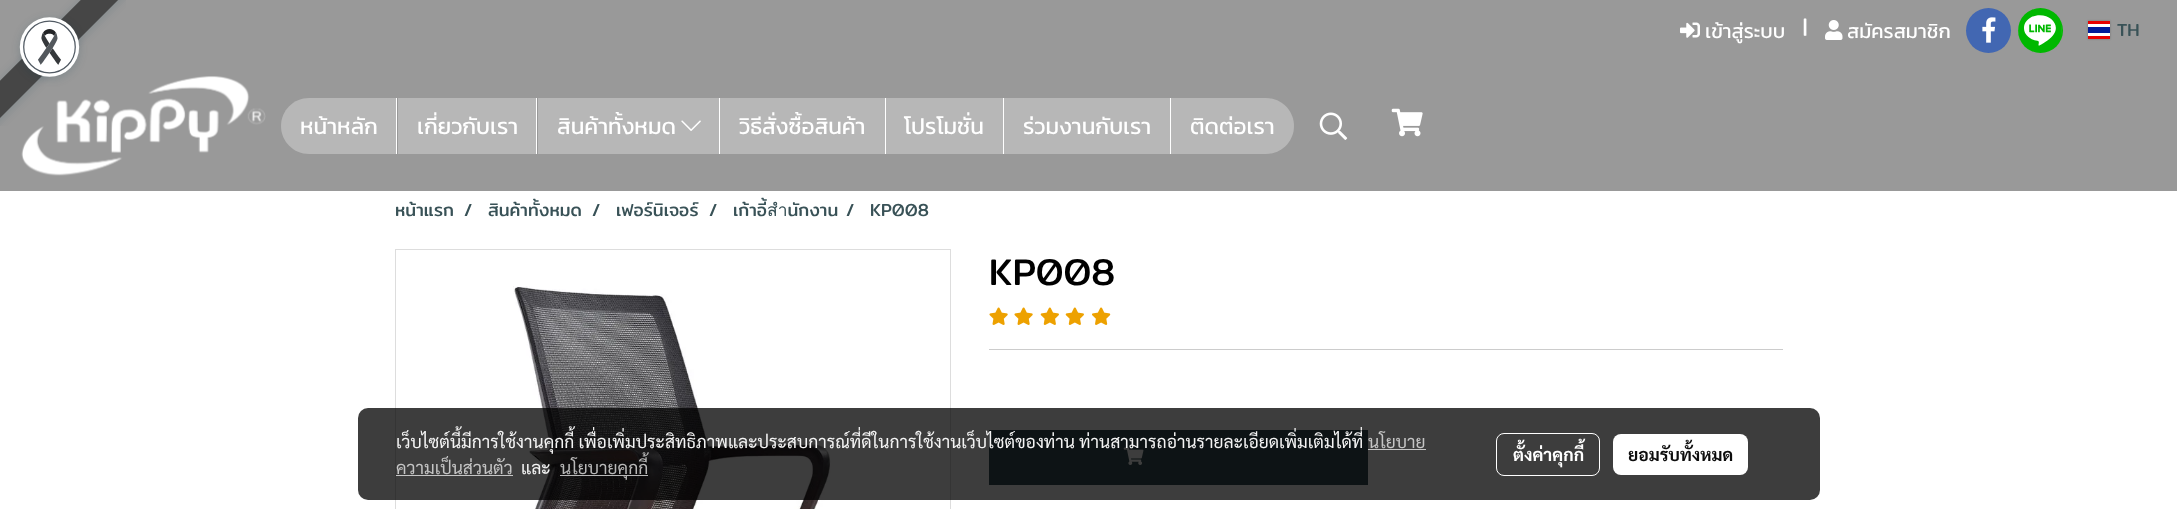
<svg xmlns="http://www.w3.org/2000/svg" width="2177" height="509">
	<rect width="100%" height="100%" fill="#FFFFFF" />
	<rect x="0" y="0" width="2177" height="191" fill="#999999" />
	<image x="21" y="76" width="245" height="100" href="assets/img6.png" />
	<image x="0" y="0" width="126" height="126" href="assets/img1.png" />
	<image x="1680" y="22" width="20" height="16" href="assets/img2.png" />
	<text x="1705" y="38" font-family="Kanit" font-size="20" fill="#FFFFFF">เข้าสู่ระบบ</text>
	<text x="1803" y="34" font-family="Mitr" font-size="20" fill="#FFFFFF">|</text>
	<image x="1825" y="20" width="18" height="20" href="assets/img3.png" />
	<text x="1847" y="38" font-family="Kanit" font-size="20" fill="#FFFFFF">สมัครสมาชิก</text>
	<circle cx="1988.5" cy="30.5" r="22.5" fill="#4267B2" />
	<image x="1982" y="17" width="14" height="26" href="assets/img4.png" />
	<circle cx="2040.5" cy="30.5" r="22.5" fill="#00B800" />
	<image x="2018" y="15" width="44" height="31" href="assets/img5.png" />
	<rect x="2088" y="21" width="22" height="18" fill="#000000" fill-opacity="0.25" filter="blur(1px)" />
	<rect x="2088" y="24" width="22" height="12" fill="#FFFFFF" />
	<rect x="2088" y="27" width="22" height="6" fill="#001B9A" />
	<rect x="2088" y="21" width="22" height="3" fill="#E70000" />
	<rect x="2088" y="36" width="22" height="3" fill="#E70000" />
	<text x="2117" y="36" font-family="Mitr" font-size="17.5" fill="#395257">TH</text>
	<rect x="396" y="98" width="1" height="56" fill="#FFFFFF" />
	<path d="M309 98H396V154H309C293.5 154 281 141.5 281 126C281 110.5 293.5 98 309 98Z" fill="#B7B7B7" />
	<text x="300" y="134" font-family="Kanit" font-size="22.5" fill="#FFFFFF">หน้าหลัก</text>
	<rect x="536" y="98" width="1" height="56" fill="#FFFFFF" />
	<rect x="398" y="98" width="138" height="56" fill="#B7B7B7" />
	<text x="417" y="134" font-family="Kanit" font-size="22.5" fill="#FFFFFF">เกี่ยวกับเรา</text>
	<rect x="719" y="98" width="1" height="56" fill="#FFFFFF" />
	<rect x="538" y="98" width="181" height="56" fill="#B7B7B7" />
	<text x="557" y="134" font-family="Kanit" font-size="22.5" fill="#FFFFFF">สินค้าทั้งหมด</text>
	<image x="681" y="120" width="20" height="11" href="assets/img7.png" />
	<rect x="885" y="98" width="1" height="56" fill="#FFFFFF" />
	<rect x="720" y="98" width="165" height="56" fill="#B7B7B7" />
	<text x="739" y="134" font-family="Kanit" font-size="22.5" fill="#FFFFFF">วิธีสั่งซื้อสินค้า</text>
	<rect x="1003" y="98" width="1" height="56" fill="#FFFFFF" />
	<rect x="886" y="98" width="117" height="56" fill="#B7B7B7" />
	<text x="904" y="134" font-family="Kanit" font-size="22.5" fill="#FFFFFF">โปรโมชั่น</text>
	<rect x="1170" y="98" width="1" height="56" fill="#FFFFFF" />
	<rect x="1004" y="98" width="166" height="56" fill="#B7B7B7" />
	<text x="1023" y="134" font-family="Kanit" font-size="22.5" fill="#FFFFFF">ร่วมงานกับเรา</text>
	<path d="M1171 98H1266C1281.5 98 1294 110.5 1294 126C1294 141.5 1281.5 154 1266 154H1171Z" fill="#B7B7B7" />
	<text x="1190" y="134" font-family="Kanit" font-size="22.5" fill="#FFFFFF">ติดต่อเรา</text>
	<image x="1319" y="112" width="29" height="28" href="assets/img8.png" />
	<image x="1391" y="108" width="32" height="29" href="assets/img9.png" />
	<g font-family="Mitr" font-size="17.5" fill="#395257">
		<text x="395" y="216">หน้าแรก</text>
		<text x="464" y="216">/</text>
		<text x="488" y="216">สินค้าทั้งหมด</text>
		<text x="592" y="216">/</text>
		<text x="616" y="216">เฟอร์นิเจอร์</text>
		<text x="709" y="216">/</text>
		<text x="733" y="216">เก้าอี้สำนักงาน</text>
		<text x="846" y="216">/</text>
		<text x="870" y="216">KP008</text>
	</g>
	<rect x="395.5" y="249.5" width="555" height="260" fill="none" stroke="#DDDDDD" />
	<image x="513" y="286" width="318" height="223" href="assets/img10.png" />
	<text x="989" y="285" font-family="Mitr" font-size="37.5" fill="#000000">KP008</text>
	<image x="989" y="307" width="19" height="18" href="assets/img11.png" />
	<image x="1014" y="307" width="19" height="18" href="assets/img11.png" />
	<image x="1040" y="307" width="19" height="18" href="assets/img12.png" />
	<image x="1065" y="307" width="19" height="18" href="assets/img12.png" />
	<image x="1092" y="307" width="19" height="18" href="assets/img13.png" />
	<rect x="989" y="349" width="794" height="1" fill="#CCCCCC" />
	<rect x="989" y="430" width="379" height="55" fill="#395257" />
	<image x="1123" y="447" width="21" height="18" href="assets/img14.png" />
	<rect x="358" y="408" width="1462" height="92" rx="10" fill="#000000" fill-opacity="0.76" />
	<g font-family="Sarabun" font-size="17.5" fill="#F4F4F4">
		<text x="396" y="448">เว็บไซต์นี้มีการใช้งานคุกกี้ เพื่อเพิ่มประสิทธิภาพและประสบการณ์ที่ดีในการใช้งานเว็บไซต์ของท่าน</text>
		<text x="1079" y="448">ท่านสามารถอ่านรายละเอียดเพิ่มเติมได้ที่</text>
	</g>
	<text x="1368" y="448" font-family="Sarabun" font-size="17.5" fill="#C5C5C5">นโยบาย</text>
	<rect x="1368" y="449" width="58" height="1" fill="#C5C5C5" />
	<text x="396" y="474" font-family="Sarabun" font-size="17.5" fill="#C5C5C5">ความเป็นส่วนตัว</text>
	<rect x="396" y="475" width="117" height="1" fill="#C5C5C5" />
	<text x="521" y="474" font-family="Sarabun" font-size="17.5" fill="#F4F4F4">และ</text>
	<rect x="560" y="475" width="88" height="1" fill="#C2C2C2" fill-opacity="0.95" />
	<text x="560" y="474" font-family="Sarabun" font-size="17.5" fill="#B9B9B9">นโยบายคุกกี้</text>
	<rect x="1496.5" y="433.5" width="103" height="42" rx="7.5" fill="none" stroke="#FFFFFF" />
	<text x="1513" y="461" font-family="Sarabun" font-size="17.5" font-weight="700" fill="#FFFFFF">ตั้งค่าคุกกี้</text>
	<rect x="1613" y="434" width="135" height="41" rx="8" fill="#FFFFFF" />
	<text x="1628" y="461" font-family="Sarabun" font-size="17.5" font-weight="700" fill="#0D0D0D">ยอมรับทั้งหมด</text>
</svg>
